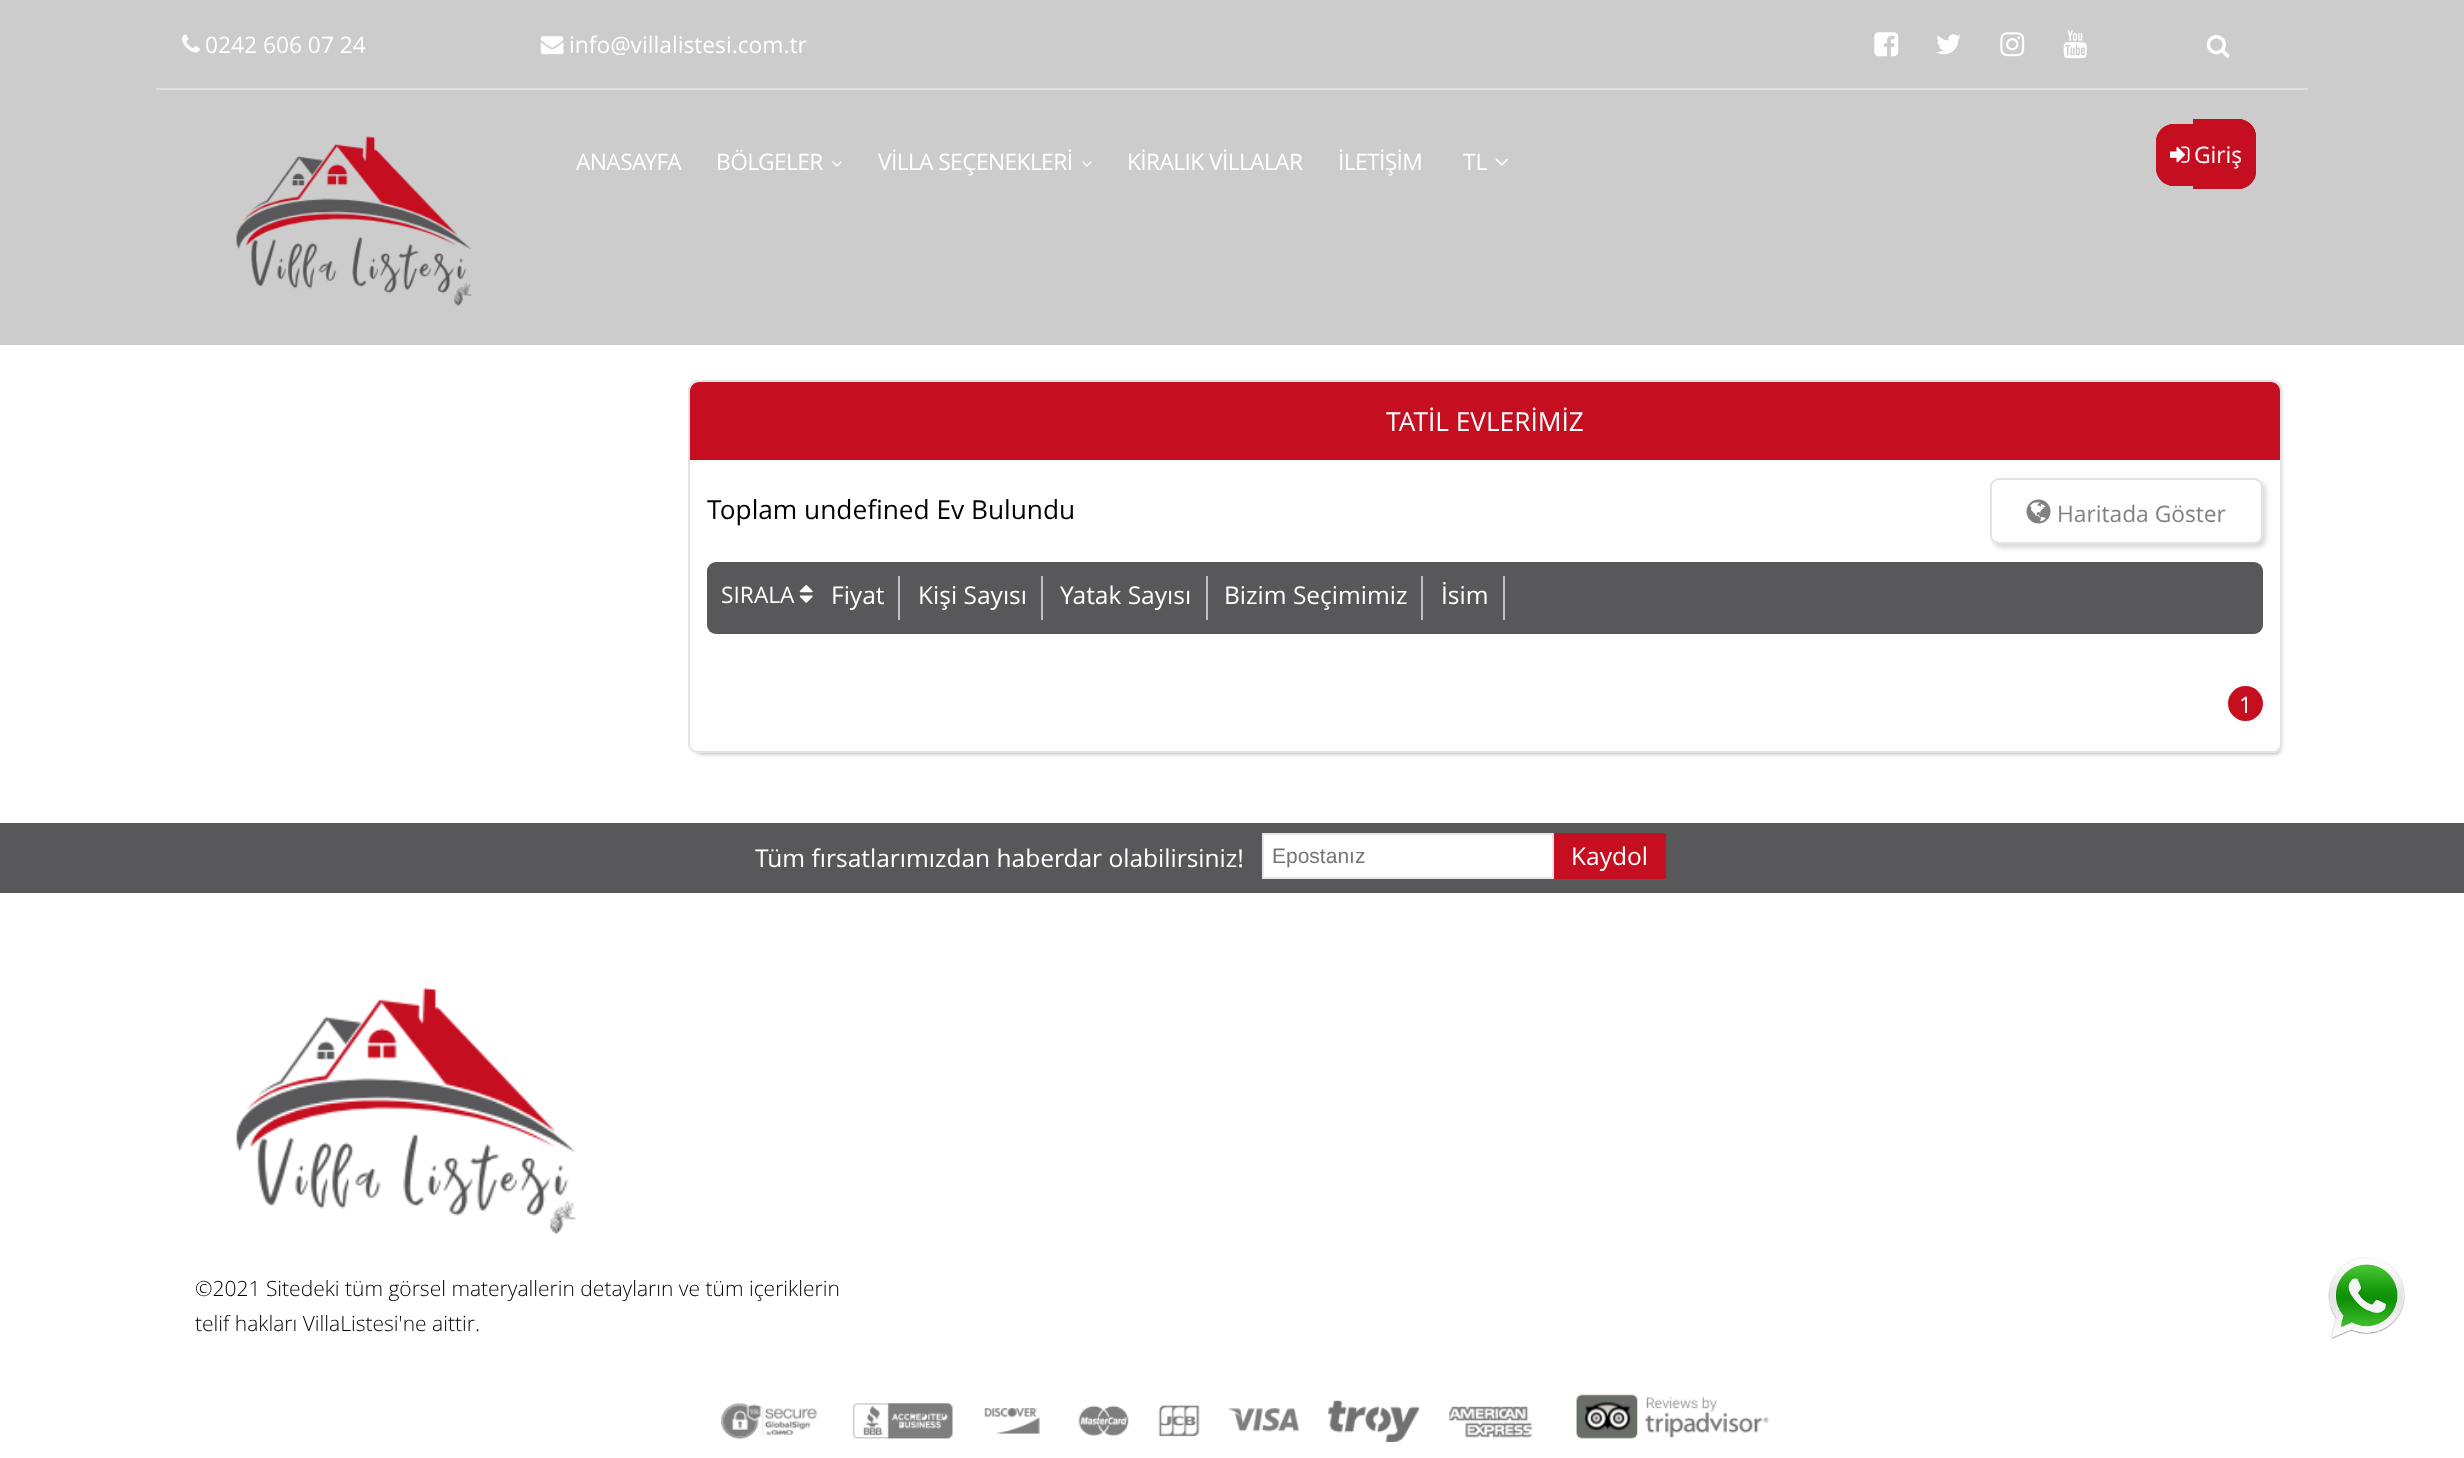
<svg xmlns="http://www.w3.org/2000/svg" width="2464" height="1458">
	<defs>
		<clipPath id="clip1"><path d="M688 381H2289V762H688ZM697 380H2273C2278 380 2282 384 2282 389V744C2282 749 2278 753 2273 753H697C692 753 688 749 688 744V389C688 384 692 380 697 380Z" clip-rule="evenodd" /></clipPath>
	</defs>
	<rect width="100%" height="100%" fill="#FFFFFF" />
	<rect x="0" y="0" width="2464" height="345" fill="#CCCCCC" />
	<rect x="156" y="88" width="2152" height="2" fill="#E0E0E0" />
	<image x="182" y="34" width="18" height="19" href="assets/img1.png" />
	<text x="205" y="53" font-family="Open Sans" font-size="22.75" fill="#FFFFFF">0242 606 07 24</text>
	<image x="540" y="36" width="24" height="19" href="assets/img2.png" />
	<text x="569" y="53" font-family="Open Sans" font-size="22.75" fill="#FFFFFF">info@villalistesi.com.tr</text>
	<image x="1874" y="32" width="25" height="25" href="assets/img3.png" />
	<image x="1936" y="34" width="25" height="21" href="assets/img4.png" />
	<image x="2000" y="32" width="25" height="25" href="assets/img5.png" />
	<image x="2063" y="30" width="24" height="29" href="assets/img6.png" />
	<image x="2206" y="35" width="24" height="23" href="assets/img7.png" />
	<image x="236" y="136" width="236" height="170" href="assets/img8.png" />
	<g font-family="Open Sans" font-size="22.75" letter-spacing="-0.6" fill="#FFFFFF">
		<text x="576" y="170">ANASAYFA</text>
		<text x="716" y="170">BÖLGELER</text>
	</g>
	<image x="832" y="161" width="10" height="6" href="assets/img9.png" />
	<text x="878" y="170" font-family="Open Sans" font-size="22.75" letter-spacing="-0.6" fill="#FFFFFF">VİLLA SEÇENEKLERİ</text>
	<image x="1082" y="161" width="10" height="6" href="assets/img10.png" />
	<g font-family="Open Sans" font-size="22.75" letter-spacing="-0.6" fill="#FFFFFF">
		<text x="1127" y="170">KİRALIK VİLLALAR</text>
		<text x="1338" y="170">İLETİŞİM</text>
	</g>
	<text x="1463" y="170" font-family="Open Sans" font-size="22.75" fill="#FFFFFF">TL</text>
	<image x="1495" y="158" width="13" height="8" href="assets/img11.png" />
	<path d="M2174 124H2193V186H2174C2164 186 2156 178 2156 168V142C2156 132 2164 124 2174 124Z" fill="#C50E1F" />
	<path d="M2174 124H2193V186H2174C2164 186 2156 178 2156 168V142C2156 132 2164 124 2174 124ZM2174 126H2193V184H2174C2165 184 2158 177 2158 168V142C2158 133 2165 126 2174 126Z" fill="#C50E1F" fill-rule="evenodd" />
	<path d="M2193 119H2238C2248 119 2256 127 2256 137V171C2256 181 2248 189 2238 189H2193Z" fill="#C50E1F" />
	<path d="M2193 119H2238C2248 119 2256 127 2256 136V172C2256 181 2248 189 2238 189H2193ZM2193 121H2238C2247 121 2254 128 2254 136V172C2254 180 2247 187 2238 187H2193Z" fill="#C50E1F" fill-rule="evenodd" />
	<image x="2170" y="146" width="20" height="17" href="assets/img12.png" />
	<text x="2194" y="163" font-family="Open Sans" font-size="22.75" fill="#FFFFFF">Giriş</text>
	<g clip-path="url(#clip1)">
		<rect x="697" y="390" width="1583" height="363" rx="4" fill="#323232" fill-opacity="0.5" filter="blur(2.5px)" />
	</g>
	<rect x="689" y="381" width="1592" height="371" rx="8" fill="none" stroke="#E3E3E3" stroke-width="2" />
	<path d="M699 382H2271C2276 382 2280 386 2280 391V460H690V391C690 386 694 382 699 382Z" fill="#C50E1F" />
	<text x="1386" y="431" font-family="Open Sans" font-size="26.25" fill="#FFFFFF">TATİL EVLERİMİZ</text>
	<text x="707" y="519" font-family="Open Sans" font-size="26.25" fill="#000000">Toplam undefined Ev Bulundu</text>
	<rect x="1993" y="481" width="273" height="67" rx="9" fill="#000000" fill-opacity="0.15" filter="blur(2.5px)" />
	<rect x="1991" y="479" width="271" height="64" rx="8" fill="#FFFFFF" stroke="#E3E3E3" stroke-width="2" />
	<image x="2026" y="499" width="25" height="25" href="assets/img13.png" />
	<text x="2057" y="522" font-family="Open Sans" font-size="22.75" fill="#818181">Haritada Göster</text>
	<rect x="707" y="562" width="1556" height="72" rx="9" fill="#58585A" />
	<text x="721" y="603" font-family="Open Sans" font-size="22.75" fill="#FFFFFF">SIRALA</text>
	<image x="799" y="585" width="14" height="18" href="assets/img14.png" />
	<rect x="898" y="576" width="2" height="44" fill="#C0C0C0" />
	<text x="831" y="604" font-family="Open Sans" font-size="24.5" fill="#FFFFFF">Fiyat</text>
	<rect x="1041" y="576" width="2" height="44" fill="#C0C0C0" />
	<text x="918" y="604" font-family="Open Sans" font-size="24.5" fill="#FFFFFF">Kişi Sayısı</text>
	<rect x="1206" y="576" width="2" height="44" fill="#C0C0C0" />
	<text x="1060" y="604" font-family="Open Sans" font-size="24.5" fill="#FFFFFF">Yatak Sayısı</text>
	<rect x="1421" y="576" width="2" height="44" fill="#C0C0C0" />
	<text x="1224" y="604" font-family="Open Sans" font-size="24.5" fill="#FFFFFF">Bizim Seçimimiz</text>
	<rect x="1503" y="576" width="2" height="44" fill="#C0C0C0" />
	<text x="1441" y="604" font-family="Open Sans" font-size="24.5" fill="#FFFFFF">İsim</text>
	<circle cx="2245.5" cy="703.5" r="17.5" fill="#C50E1F" />
	<text x="2239" y="713" font-family="Open Sans" font-size="22.75" fill="#FFFFFF">1</text>
	<rect x="0" y="823" width="2464" height="70" fill="#58585A" />
	<text x="755" y="867" font-family="Open Sans" font-size="24.5" fill="#FFFFFF">Tüm fırsatlarımızdan haberdar olabilirsiniz!</text>
	<rect x="1263" y="834" width="290" height="44" fill="#FFFFFF" stroke="#E6E6E6" stroke-width="2" />
	<text x="1272" y="863" font-family="Liberation Sans" font-size="21" fill="#757575">Epostanız</text>
	<rect x="1554" y="833" width="112" height="46" fill="#C50E1F" />
	<text x="1571" y="865" font-family="Open Sans" font-size="24.5" fill="#FFFFFF">Kaydol</text>
	<image x="236" y="987" width="340" height="247" href="assets/img15.png" />
	<g font-family="Open Sans" font-size="21" font-weight="300" fill="#000000">
		<text x="195" y="1296">©2021 Sitedeki tüm görsel materyallerin detayların ve tüm içeriklerin</text>
		<text x="195" y="1331">telif hakları VillaListesi'ne aittir.</text>
	</g>
	<image x="721" y="1394" width="1049" height="48" href="assets/img16.png" />
	<image x="2328" y="1257" width="77" height="82" href="assets/img17.png" />
</svg>
